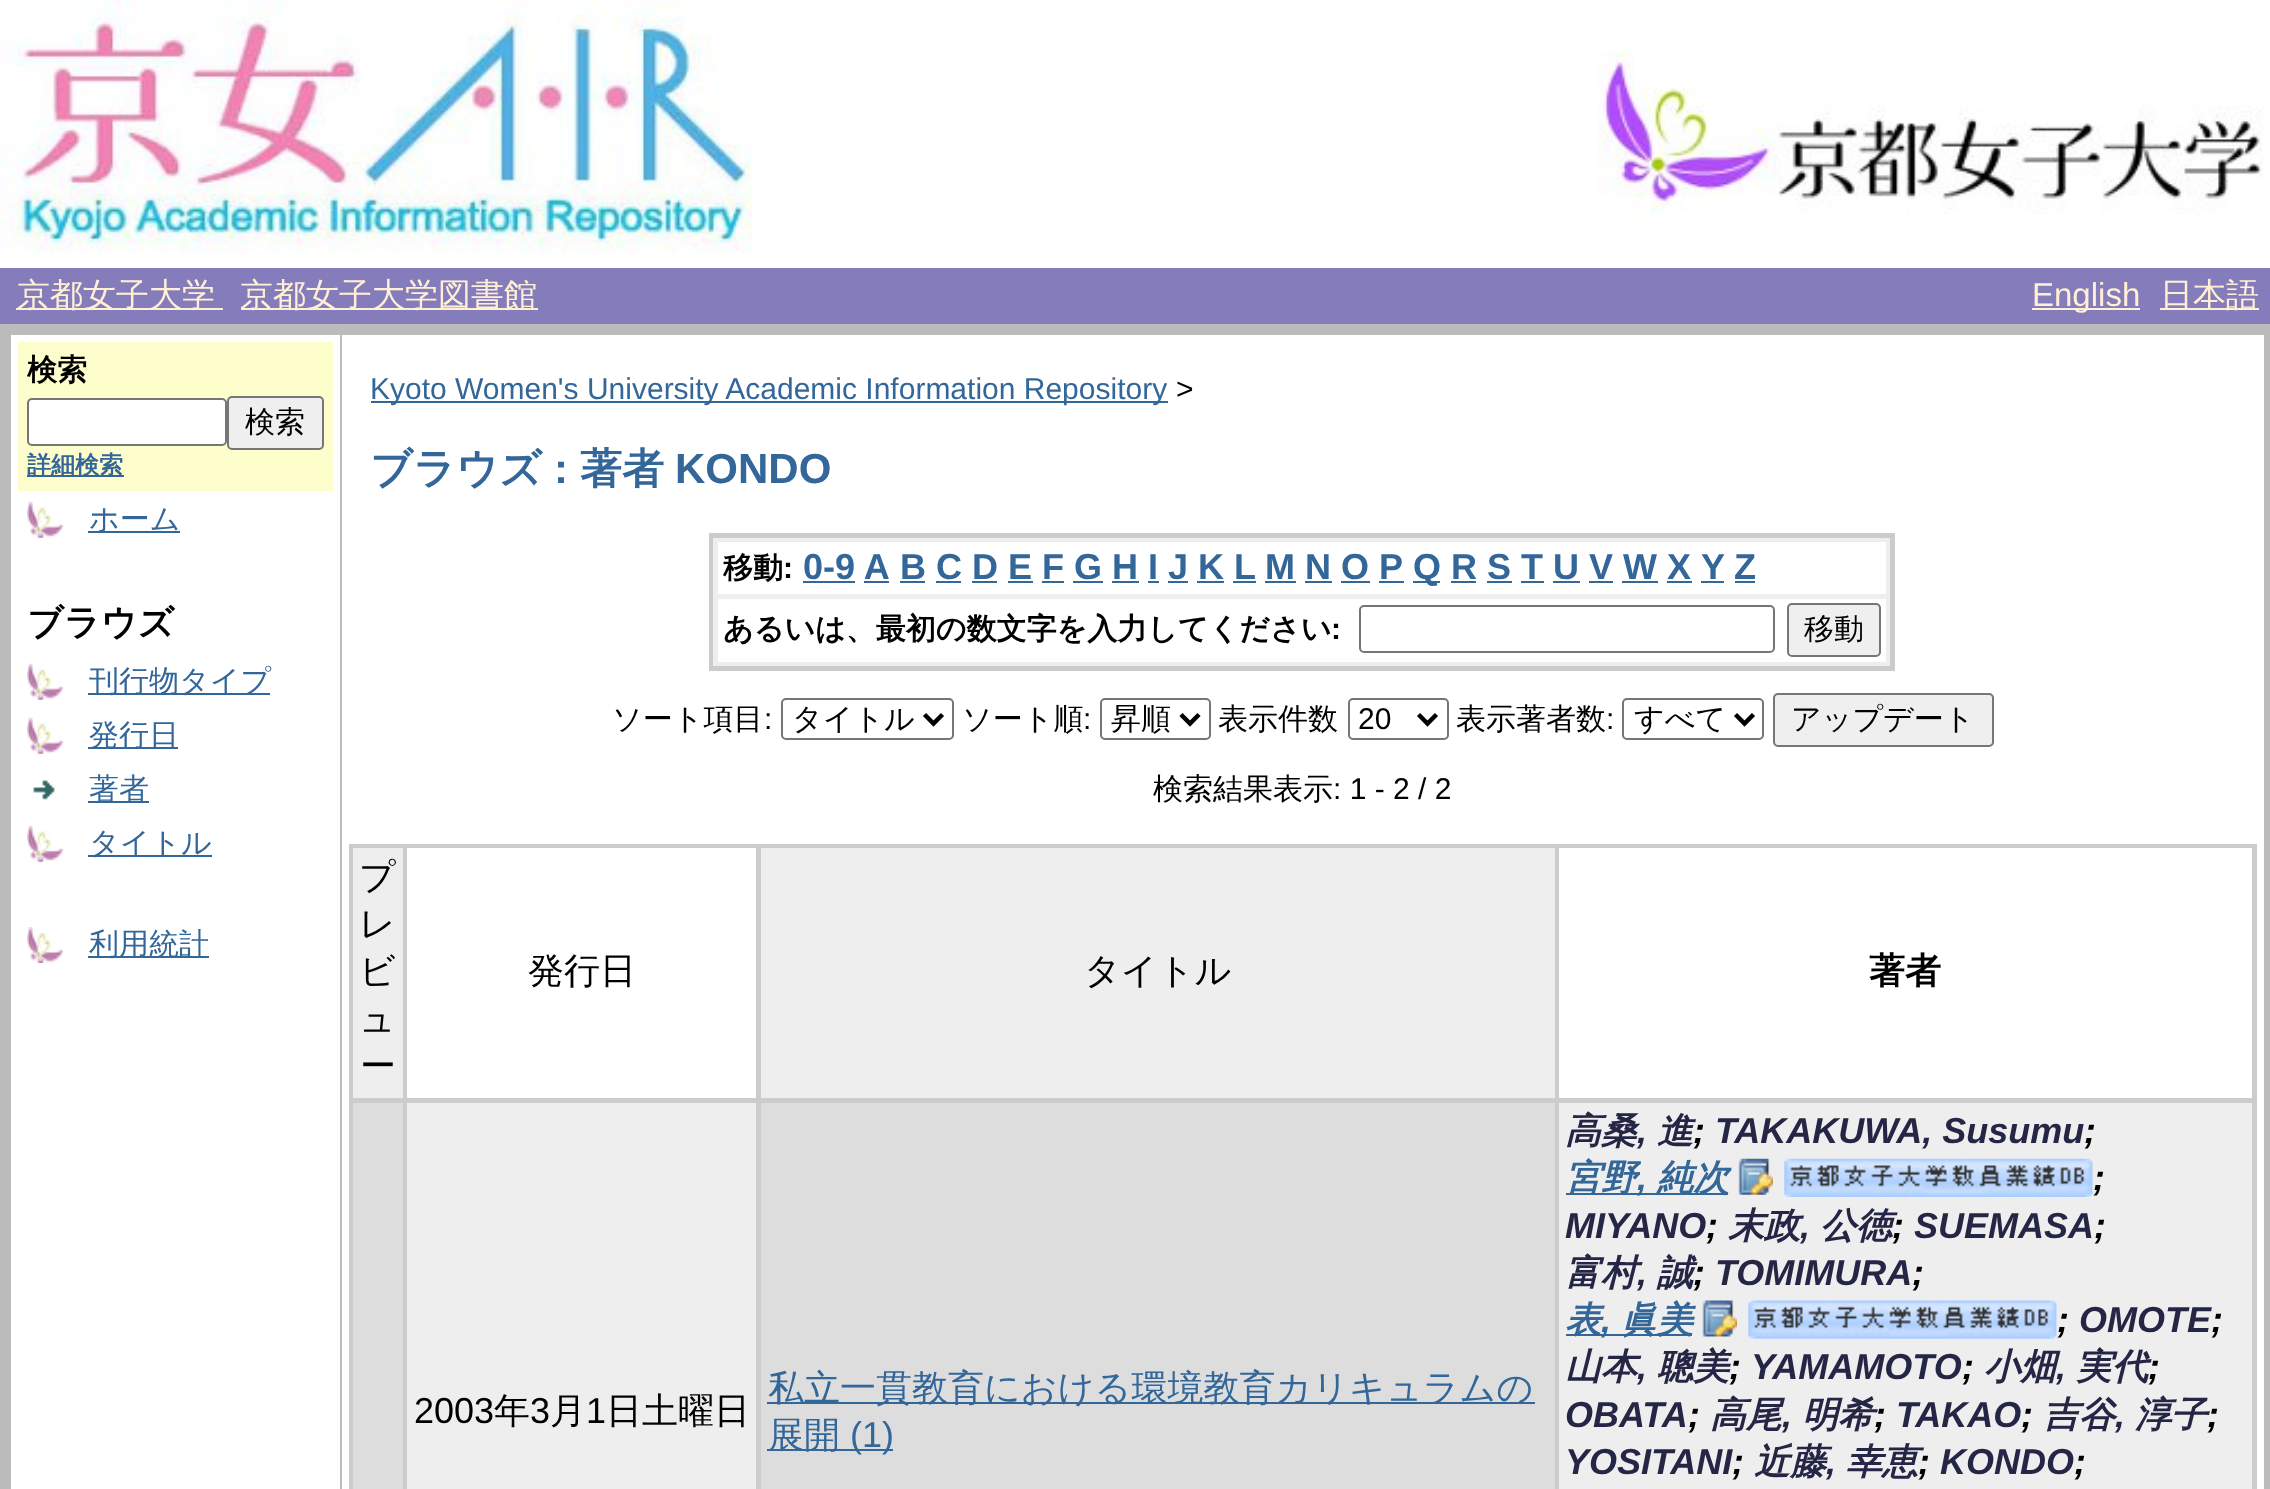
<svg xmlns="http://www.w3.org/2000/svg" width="2270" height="1489">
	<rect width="100%" height="100%" fill="#BBBBBB" />
	<rect x="0" y="0" width="2270" height="268" fill="#FFFFFF" />
	<image x="0" y="0" width="752" height="254" href="assets/img1.png" />
	<image x="1597" y="51" width="666" height="163" href="assets/img2.png" />
	<rect x="0" y="268" width="2270" height="56" fill="#857CBB" />
	<rect x="16" y="308" width="207" height="2" fill="#FFEFD5" />
	<text x="17" y="306" font-family="WenQuanYi Zen Hei" font-size="33" font-weight="500" fill="#FFEFD5">京都女子大学</text>
	<rect x="241" y="308" width="297" height="2" fill="#FFEFD5" />
	<text x="240" y="306" font-family="WenQuanYi Zen Hei" font-size="33" font-weight="500" fill="#FFEFD5">京都女子大学図書館</text>
	<rect x="2032" y="308" width="108" height="2" fill="#FFEFD5" />
	<text x="2032" y="306" font-family="Liberation Sans" font-size="33" fill="#FFEFD5">English</text>
	<rect x="2160" y="308" width="99" height="2" fill="#FFEFD5" />
	<text x="2160" y="306" font-family="WenQuanYi Zen Hei" font-size="33" font-weight="500" fill="#FFEFD5">日本語</text>
	<rect x="11" y="335" width="329" height="1154" fill="#FFFFFF" />
	<rect x="18" y="342" width="315" height="149" fill="#FEFECD" />
	<text x="27" y="380" font-family="WenQuanYi Zen Hei" font-size="30" font-weight="700" fill="#000000">検索</text>
	<rect x="28" y="399" width="198" height="46" rx="4" fill="#FFFFFF" stroke="#767676" stroke-width="2" />
	<rect x="228" y="397" width="95" height="52" rx="4" fill="#EFEFEF" stroke="#767676" stroke-width="2" />
	<text x="245" y="432" font-family="WenQuanYi Zen Hei" font-size="30" font-weight="500" fill="#000000">検索</text>
	<rect x="27" y="475" width="97" height="2" fill="#336699" />
	<text x="27" y="473" font-family="WenQuanYi Zen Hei" font-size="24" font-weight="700" fill="#336699">詳細検索</text>
	<image x="27" y="501" width="36" height="37" href="assets/img3.png" />
	<rect x="88" y="531" width="92" height="2" fill="#336699" />
	<text x="89" y="529" font-family="WenQuanYi Zen Hei" font-size="30" font-weight="500" fill="#336699">ホーム</text>
	<text x="27" y="635" font-family="WenQuanYi Zen Hei" font-size="36" font-weight="700" fill="#000000">ブラウズ</text>
	<image x="27" y="663" width="36" height="37" href="assets/img3.png" />
	<rect x="88" y="693" width="182" height="2" fill="#336699" />
	<text x="89" y="691" font-family="WenQuanYi Zen Hei" font-size="30" font-weight="500" fill="#336699">刊行物タイプ</text>
	<image x="27" y="717" width="36" height="37" href="assets/img3.png" />
	<rect x="88" y="747" width="90" height="2" fill="#336699" />
	<text x="89" y="745" font-family="WenQuanYi Zen Hei" font-size="30" font-weight="500" fill="#336699">発行日</text>
	<image x="33" y="780" width="22" height="20" href="assets/img4.png" />
	<rect x="88" y="801" width="61" height="2" fill="#336699" />
	<text x="89" y="799" font-family="WenQuanYi Zen Hei" font-size="30" font-weight="500" fill="#336699">著者</text>
	<image x="27" y="825" width="36" height="37" href="assets/img5.png" />
	<rect x="88" y="855" width="124" height="2" fill="#336699" />
	<text x="89" y="853" font-family="WenQuanYi Zen Hei" font-size="30" font-weight="500" fill="#336699">タイトル</text>
	<image x="27" y="927" width="36" height="36" href="assets/img6.png" />
	<rect x="88" y="956" width="121" height="2" fill="#336699" />
	<text x="89" y="954" font-family="WenQuanYi Zen Hei" font-size="30" font-weight="500" fill="#336699">利用統計</text>
	<rect x="342" y="335" width="1922" height="1154" fill="#FFFFFF" />
	<rect x="371" y="401" width="797" height="2" fill="#336699" />
	<text x="370" y="399" font-family="Liberation Sans" font-size="30" fill="#336699">Kyoto Women's University Academic Information Repository</text>
	<text x="1176" y="399" font-family="Liberation Sans" font-size="30" fill="#000000">&gt;</text>
	<text x="370" y="483" font-family="WenQuanYi Zen Hei" font-size="42" font-weight="700" fill="#336699">ブラウズ</text>
	<text x="554" y="483" font-family="Liberation Sans" font-size="42" font-weight="700" fill="#336699">:</text>
	<text x="580" y="483" font-family="WenQuanYi Zen Hei" font-size="42" font-weight="700" fill="#336699">著者</text>
	<text x="675" y="483" font-family="Liberation Sans" font-size="42" font-weight="700" fill="#336699">KONDO</text>
	<rect x="709" y="533" width="1186" height="138" fill="#CCCCCC" />
	<rect x="713" y="538" width="1177" height="128" fill="#EEEEEE" />
	<rect x="718" y="542" width="1168" height="52" fill="#FFFFFF" />
	<text x="723" y="578" font-family="WenQuanYi Zen Hei" font-size="30" font-weight="700" fill="#000000">移動</text>
	<text x="783" y="578" font-family="Liberation Sans" font-size="30" font-weight="700" fill="#000000">:</text>
	<text x="803" y="579" font-family="Liberation Sans" font-size="36" font-weight="700" fill="#336699">0-9 A</text>
	<rect x="803" y="581" width="52" height="2" fill="#336699" />
	<text x="900" y="579" font-family="Liberation Sans" font-size="36" font-weight="700" fill="#336699">B C D E F G H I J K L</text>
	<rect x="900" y="581" width="25" height="2" fill="#336699" />
	<text x="1265" y="579" font-family="Liberation Sans" font-size="36" font-weight="700" fill="#336699">M N O P</text>
	<rect x="1265" y="581" width="31" height="2" fill="#336699" />
	<rect x="1413" y="581" width="27" height="2" fill="#336699" />
	<g font-family="Liberation Sans" font-size="36" font-weight="700" fill="#336699">
		<text x="1413" y="579">Q R S T U V W X</text>
		<text x="1701" y="579">Y</text>
	</g>
	<rect x="1701" y="581" width="23" height="2" fill="#336699" />
	<text x="1734" y="579" font-family="Liberation Sans" font-size="36" font-weight="700" fill="#336699">Z</text>
	<rect x="1735" y="581" width="20" height="2" fill="#336699" />
	<rect x="864" y="581" width="25" height="2" fill="#336699" />
	<rect x="936" y="581" width="25" height="2" fill="#336699" />
	<rect x="972" y="581" width="25" height="2" fill="#336699" />
	<rect x="1008" y="581" width="25" height="2" fill="#336699" />
	<rect x="1042" y="581" width="22" height="2" fill="#336699" />
	<rect x="1073" y="581" width="30" height="2" fill="#336699" />
	<rect x="1112" y="581" width="27" height="2" fill="#336699" />
	<rect x="1148" y="581" width="11" height="2" fill="#336699" />
	<rect x="1168" y="581" width="20" height="2" fill="#336699" />
	<rect x="1197" y="581" width="27" height="2" fill="#336699" />
	<rect x="1233" y="581" width="23" height="2" fill="#336699" />
	<rect x="1305" y="581" width="27" height="2" fill="#336699" />
	<rect x="1341" y="581" width="29" height="2" fill="#336699" />
	<rect x="1379" y="581" width="25" height="2" fill="#336699" />
	<rect x="1451" y="581" width="25" height="2" fill="#336699" />
	<rect x="1487" y="581" width="25" height="2" fill="#336699" />
	<rect x="1521" y="581" width="23" height="2" fill="#336699" />
	<rect x="1553" y="581" width="27" height="2" fill="#336699" />
	<rect x="1589" y="581" width="24" height="2" fill="#336699" />
	<rect x="1622" y="581" width="36" height="2" fill="#336699" />
	<rect x="1667" y="581" width="25" height="2" fill="#336699" />
	<rect x="718" y="599" width="1168" height="63" fill="#FFFFFF" />
	<text x="723" y="639" font-family="WenQuanYi Zen Hei" font-size="30" font-weight="700" fill="#000000">あるいは、最初の数文字を入力してください</text>
	<text x="1331" y="639" font-family="Liberation Sans" font-size="30" font-weight="700" fill="#000000">:</text>
	<rect x="1360" y="606" width="414" height="46" rx="4" fill="none" stroke="#767676" stroke-width="2" />
	<rect x="1788" y="604" width="92" height="52" rx="4" fill="#EFEFEF" stroke="#767676" stroke-width="2" />
	<g font-family="WenQuanYi Zen Hei" font-size="30" font-weight="500" fill="#000000">
		<text x="1804" y="639">移動</text>
		<text x="612" y="729">ソート項目</text>
	</g>
	<text x="764" y="729" font-family="Liberation Sans" font-size="30" fill="#000000">:</text>
	<rect x="782" y="699" width="171" height="40" rx="4" fill="none" stroke="#767676" stroke-width="2" />
	<path d="M924.5 714.5L933.5 723.5L942.5 714.5" fill="none" stroke="#000000" stroke-width="4.5" />
	<g font-family="WenQuanYi Zen Hei" font-size="30" font-weight="500" fill="#000000">
		<text x="792" y="729">タイトル</text>
		<text x="962" y="729">ソート順</text>
	</g>
	<text x="1083" y="729" font-family="Liberation Sans" font-size="30" fill="#000000">:</text>
	<rect x="1101" y="699" width="109" height="40" rx="4" fill="none" stroke="#767676" stroke-width="2" />
	<path d="M1181 714.5L1190 723.5L1199 714.5" fill="none" stroke="#000000" stroke-width="4.5" />
	<g font-family="WenQuanYi Zen Hei" font-size="30" font-weight="500" fill="#000000">
		<text x="1111" y="729">昇順</text>
		<text x="1218" y="729">表示件数</text>
	</g>
	<rect x="1349" y="699" width="99" height="40" rx="4" fill="none" stroke="#767676" stroke-width="2" />
	<path d="M1418.5 714.5L1427.5 723.5L1436.5 714.5" fill="none" stroke="#000000" stroke-width="4.5" />
	<text x="1358" y="729" font-family="Liberation Sans" font-size="30" fill="#000000">20</text>
	<text x="1456" y="729" font-family="WenQuanYi Zen Hei" font-size="30" font-weight="500" fill="#000000">表示著者数</text>
	<text x="1606" y="729" font-family="Liberation Sans" font-size="30" fill="#000000">:</text>
	<rect x="1623" y="699" width="140" height="40" rx="4" fill="none" stroke="#767676" stroke-width="2" />
	<path d="M1735.5 714.5L1744.5 723.5L1753.5 714.5" fill="none" stroke="#000000" stroke-width="4.5" />
	<text x="1634" y="729" font-family="WenQuanYi Zen Hei" font-size="30" font-weight="500" fill="#000000">すべて</text>
	<rect x="1774" y="694" width="219" height="52" rx="4" fill="#EFEFEF" stroke="#767676" stroke-width="2" />
	<g font-family="WenQuanYi Zen Hei" font-size="30" font-weight="500" fill="#000000">
		<text x="1791" y="729">アップデート</text>
		<text x="1153" y="799">検索結果表示</text>
	</g>
	<text x="1333" y="799" font-family="Liberation Sans" font-size="30" fill="#000000">: 1 - 2 / 2</text>
	<rect x="349" y="844" width="1908" height="645" fill="#CCCCCC" />
	<rect x="353" y="848" width="50" height="250" fill="#EEEEEE" />
	<g font-family="WenQuanYi Zen Hei" font-size="36" font-weight="500" fill="#000000">
		<text x="359" y="889">プ</text>
		<text x="359" y="936">レ</text>
		<text x="359" y="983">ビ</text>
		<text x="359" y="1031">ュ</text>
		<text x="360" y="1078">ー</text>
	</g>
	<rect x="407" y="848" width="349" height="250" fill="#FFFFFF" />
	<text x="528" y="983" font-family="WenQuanYi Zen Hei" font-size="36" font-weight="500" fill="#000000">発行日</text>
	<rect x="761" y="848" width="794" height="250" fill="#EEEEEE" />
	<text x="1084" y="983" font-family="WenQuanYi Zen Hei" font-size="36" font-weight="500" fill="#000000">タイトル</text>
	<rect x="1559" y="848" width="693" height="250" fill="#FFFFFF" />
	<text x="1869" y="983" font-family="WenQuanYi Zen Hei" font-size="36" font-weight="700" fill="#000000">著者</text>
	<rect x="353" y="1103" width="50" height="386" fill="#DDDDDD" />
	<rect x="407" y="1103" width="349" height="386" fill="#EEEEEE" />
	<text x="414" y="1423" font-family="Liberation Sans" font-size="36" fill="#000000">2003</text>
	<text x="494" y="1423" font-family="WenQuanYi Zen Hei" font-size="36" font-weight="500" fill="#000000">年</text>
	<text x="530" y="1423" font-family="Liberation Sans" font-size="36" fill="#000000">3</text>
	<text x="550" y="1423" font-family="WenQuanYi Zen Hei" font-size="36" font-weight="500" fill="#000000">月</text>
	<text x="586" y="1423" font-family="Liberation Sans" font-size="36" fill="#000000">1</text>
	<text x="606" y="1423" font-family="WenQuanYi Zen Hei" font-size="36" font-weight="500" fill="#000000">日土曜日</text>
	<rect x="761" y="1103" width="794" height="386" fill="#DDDDDD" />
	<rect x="767" y="1402" width="768" height="2" fill="#336699" />
	<text x="768" y="1400" font-family="WenQuanYi Zen Hei" font-size="36" font-weight="500" fill="#336699">私立一貫教育における環境教育カリキュラムの</text>
	<rect x="767" y="1449" width="126" height="2" fill="#336699" />
	<text x="768" y="1447" font-family="WenQuanYi Zen Hei" font-size="36" font-weight="500" fill="#336699">展開</text>
	<text x="850" y="1447" font-family="Liberation Sans" font-size="36" fill="#336699">(1)</text>
	<rect x="1559" y="1103" width="693" height="386" fill="#EEEEEE" />
	<text x="1565" y="1143" font-family="WenQuanYi Zen Hei" font-size="36" font-weight="700" font-style="italic" fill="#252645">高桑</text>
	<text x="1637" y="1143" font-family="Liberation Sans" font-size="36" font-weight="700" font-style="italic" fill="#252645">,</text>
	<text x="1657" y="1143" font-family="WenQuanYi Zen Hei" font-size="36" font-weight="700" font-style="italic" fill="#252645">進</text>
	<text x="1693" y="1143" font-family="Liberation Sans" font-size="36" font-weight="700" font-style="italic" fill="#000000">;</text>
	<text x="1715" y="1143" font-family="Liberation Sans" font-size="36" font-weight="700" font-style="italic" fill="#252645">TAKAKUWA, Susumu</text>
	<text x="2084" y="1143" font-family="Liberation Sans" font-size="36" font-weight="700" font-style="italic" fill="#000000">;</text>
	<rect x="1566" y="1193" width="162" height="2" fill="#336699" />
	<g font-family="WenQuanYi Zen Hei" font-size="36" font-weight="700" font-style="italic" fill="#336699">
		<text x="1565" y="1190">宮野</text>
		<text x="1657" y="1190">純次</text>
	</g>
	<image x="1738" y="1158" width="35" height="37" href="assets/img7.png" />
	<image x="1784" y="1158" width="309" height="39" href="assets/img8.png" />
	<text x="2093" y="1190" font-family="Liberation Sans" font-size="36" font-weight="700" font-style="italic" fill="#000000">;</text>
	<text x="1637" y="1190" font-family="Liberation Sans" font-size="36" font-weight="700" font-style="italic" fill="#336699">,</text>
	<text x="1565" y="1238" font-family="Liberation Sans" font-size="36" font-weight="700" font-style="italic" fill="#252645">MIYANO</text>
	<text x="1706" y="1238" font-family="Liberation Sans" font-size="36" font-weight="700" font-style="italic" fill="#000000">;</text>
	<g font-family="WenQuanYi Zen Hei" font-size="36" font-weight="700" font-style="italic" fill="#252645">
		<text x="1728" y="1238">末政</text>
		<text x="1820" y="1238">公徳</text>
	</g>
	<text x="1892" y="1238" font-family="Liberation Sans" font-size="36" font-weight="700" font-style="italic" fill="#000000">;</text>
	<text x="1914" y="1238" font-family="Liberation Sans" font-size="36" font-weight="700" font-style="italic" fill="#252645">SUEMASA</text>
	<text x="2094" y="1238" font-family="Liberation Sans" font-size="36" font-weight="700" font-style="italic" fill="#000000">;</text>
	<text x="1800" y="1238" font-family="Liberation Sans" font-size="36" font-weight="700" font-style="italic" fill="#252645">,</text>
	<g font-family="WenQuanYi Zen Hei" font-size="36" font-weight="700" font-style="italic" fill="#252645">
		<text x="1565" y="1285">富村</text>
		<text x="1657" y="1285">誠</text>
	</g>
	<text x="1693" y="1285" font-family="Liberation Sans" font-size="36" font-weight="700" font-style="italic" fill="#000000">;</text>
	<text x="1715" y="1285" font-family="Liberation Sans" font-size="36" font-weight="700" font-style="italic" fill="#252645">TOMIMURA</text>
	<text x="1912" y="1285" font-family="Liberation Sans" font-size="36" font-weight="700" font-style="italic" fill="#000000">;</text>
	<text x="1637" y="1285" font-family="Liberation Sans" font-size="36" font-weight="700" font-style="italic" fill="#252645">,</text>
	<rect x="1566" y="1334" width="126" height="2" fill="#336699" />
	<g font-family="WenQuanYi Zen Hei" font-size="36" font-weight="700" font-style="italic" fill="#336699">
		<text x="1565" y="1332">表</text>
		<text x="1621" y="1332">眞美</text>
	</g>
	<image x="1702" y="1300" width="35" height="37" href="assets/img9.png" />
	<image x="1748" y="1300" width="309" height="39" href="assets/img10.png" />
	<text x="2057" y="1332" font-family="Liberation Sans" font-size="36" font-weight="700" font-style="italic" fill="#000000">;</text>
	<text x="2079" y="1332" font-family="Liberation Sans" font-size="36" font-weight="700" font-style="italic" fill="#252645">OMOTE</text>
	<text x="2211" y="1332" font-family="Liberation Sans" font-size="36" font-weight="700" font-style="italic" fill="#000000">;</text>
	<text x="1601" y="1332" font-family="Liberation Sans" font-size="36" font-weight="700" font-style="italic" fill="#336699">,</text>
	<g font-family="WenQuanYi Zen Hei" font-size="36" font-weight="700" font-style="italic" fill="#252645">
		<text x="1565" y="1379">山本</text>
		<text x="1657" y="1379">聰美</text>
	</g>
	<text x="1729" y="1379" font-family="Liberation Sans" font-size="36" font-weight="700" font-style="italic" fill="#000000">;</text>
	<text x="1751" y="1379" font-family="Liberation Sans" font-size="36" font-weight="700" font-style="italic" fill="#252645">YAMAMOTO</text>
	<text x="1962" y="1379" font-family="Liberation Sans" font-size="36" font-weight="700" font-style="italic" fill="#000000">;</text>
	<g font-family="WenQuanYi Zen Hei" font-size="36" font-weight="700" font-style="italic" fill="#252645">
		<text x="1984" y="1379">小畑</text>
		<text x="2076" y="1379">実代</text>
	</g>
	<text x="2148" y="1379" font-family="Liberation Sans" font-size="36" font-weight="700" font-style="italic" fill="#000000">;</text>
	<g font-family="Liberation Sans" font-size="36" font-weight="700" font-style="italic" fill="#252645">
		<text x="1637" y="1379">,</text>
		<text x="2056" y="1379">,</text>
		<text x="1565" y="1427">OBATA</text>
	</g>
	<text x="1688" y="1427" font-family="Liberation Sans" font-size="36" font-weight="700" font-style="italic" fill="#000000">;</text>
	<text x="1710" y="1427" font-family="WenQuanYi Zen Hei" font-size="36" font-weight="700" font-style="italic" fill="#252645">高尾</text>
	<text x="1782" y="1427" font-family="Liberation Sans" font-size="36" font-weight="700" font-style="italic" fill="#252645">,</text>
	<text x="1802" y="1427" font-family="WenQuanYi Zen Hei" font-size="36" font-weight="700" font-style="italic" fill="#252645">明希</text>
	<text x="1874" y="1427" font-family="Liberation Sans" font-size="36" font-weight="700" font-style="italic" fill="#000000">;</text>
	<text x="1896" y="1427" font-family="Liberation Sans" font-size="36" font-weight="700" font-style="italic" fill="#252645">TAKAO</text>
	<text x="2021" y="1427" font-family="Liberation Sans" font-size="36" font-weight="700" font-style="italic" fill="#000000">;</text>
	<text x="2043" y="1427" font-family="WenQuanYi Zen Hei" font-size="36" font-weight="700" font-style="italic" fill="#252645">吉谷</text>
	<text x="2115" y="1427" font-family="Liberation Sans" font-size="36" font-weight="700" font-style="italic" fill="#252645">,</text>
	<text x="2135" y="1427" font-family="WenQuanYi Zen Hei" font-size="36" font-weight="700" font-style="italic" fill="#252645">淳子</text>
	<text x="2207" y="1427" font-family="Liberation Sans" font-size="36" font-weight="700" font-style="italic" fill="#000000">;</text>
	<text x="1565" y="1474" font-family="Liberation Sans" font-size="36" font-weight="700" font-style="italic" fill="#252645">YOSITANI</text>
	<text x="1732" y="1474" font-family="Liberation Sans" font-size="36" font-weight="700" font-style="italic" fill="#000000">;</text>
	<g font-family="WenQuanYi Zen Hei" font-size="36" font-weight="700" font-style="italic" fill="#252645">
		<text x="1754" y="1474">近藤</text>
		<text x="1846" y="1474">幸恵</text>
	</g>
	<g font-family="Liberation Sans" font-size="36" font-weight="700" font-style="italic" fill="#252645">
		<text x="1940" y="1474">KONDO</text>
		<text x="1826" y="1474">,</text>
	</g>
	<g font-family="Liberation Sans" font-size="36" font-weight="700" font-style="italic" fill="#000000">
		<text x="1918" y="1474">;</text>
		<text x="2074" y="1474">;</text>
	</g>
</svg>
